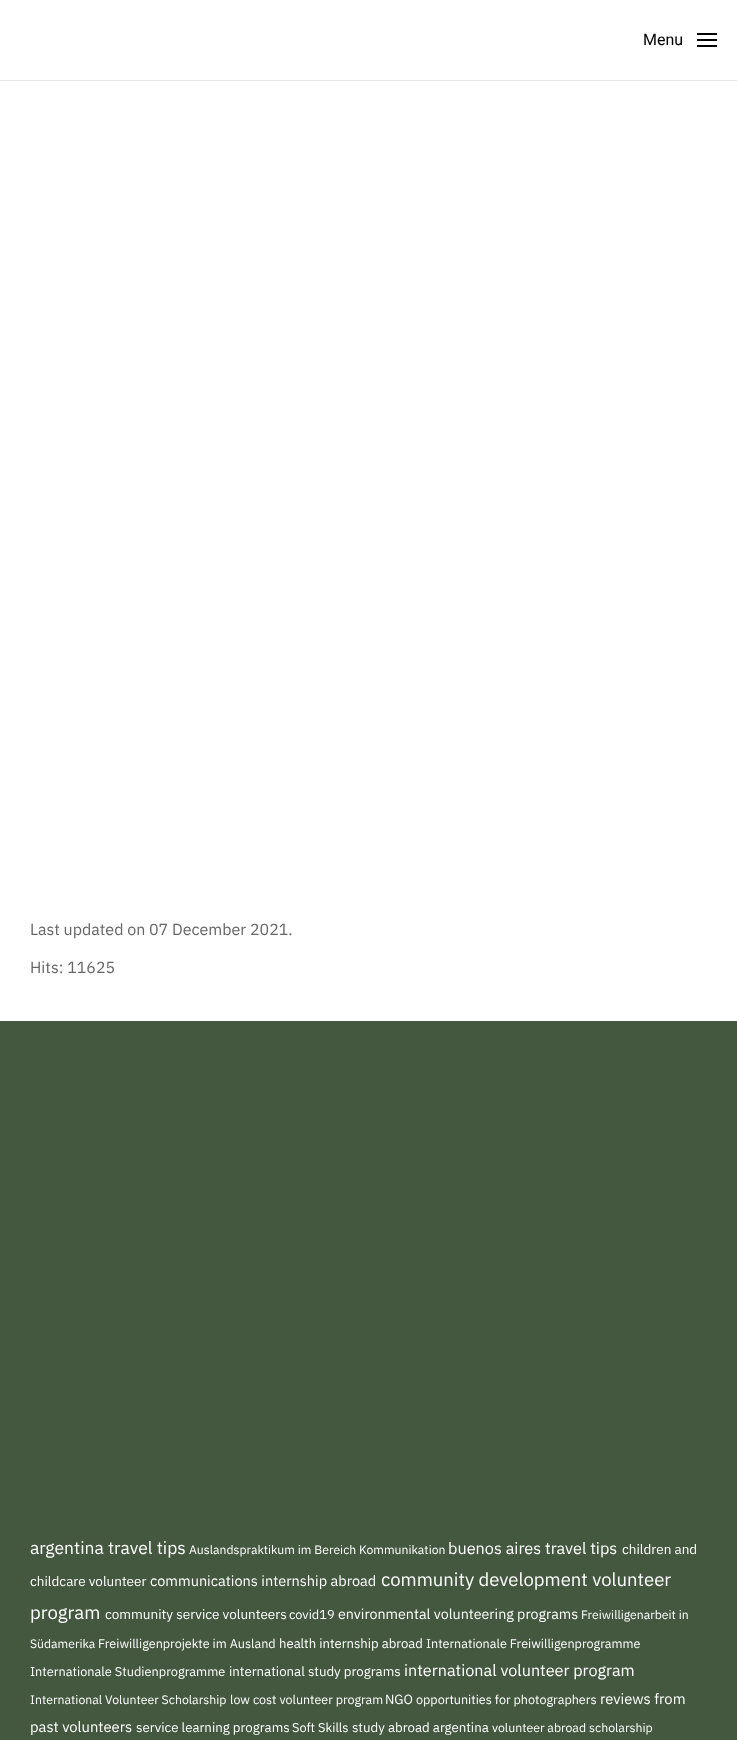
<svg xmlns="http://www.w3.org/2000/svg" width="737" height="1740">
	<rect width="100%" height="100%" fill="#FFFFFF" />
	<rect x="0" y="80" width="737" height="1" fill="#E8E8E8" />
	<text x="643" y="45" font-family="Heebo" font-size="16" fill="#000000">Menu</text>
	<rect x="697" y="33" width="20" height="2" fill="#000000" />
	<rect x="697" y="39" width="20" height="2" fill="#000000" />
	<rect x="697" y="45" width="20" height="2" fill="#000000" />
	<g font-family="IBM Plex Sans" font-size="16" fill="#666666">
		<text x="30" y="935">Last updated on 07 December 2021.</text>
		<text x="30" y="973">Hits: 11625</text>
	</g>
	<rect x="0" y="1021" width="737" height="719" fill="#445840" />
	<text x="30" y="1554" font-family="IBM Plex Sans" font-size="17.5" fill="#FFFFFF">argentina travel tips</text>
	<text x="189" y="1554" font-family="IBM Plex Sans" font-size="12.2" fill="#FFFFFF">Auslandspraktikum im Bereich Kommunikation</text>
	<text x="448" y="1554" font-family="IBM Plex Sans" font-size="16.25" fill="#FFFFFF">buenos aires travel tips</text>
	<g font-family="IBM Plex Sans" font-size="13.5" fill="#FFFFFF">
		<text x="622" y="1554">children and</text>
		<text x="30" y="1586">childcare volunteer</text>
	</g>
	<text x="150" y="1586" font-family="IBM Plex Sans" font-size="14.5" fill="#FFFFFF">communications internship abroad</text>
	<g font-family="IBM Plex Sans" font-size="18.5" fill="#FFFFFF">
		<text x="381" y="1586">community development volunteer</text>
		<text x="30" y="1619">program</text>
	</g>
	<text x="105" y="1619" font-family="IBM Plex Sans" font-size="13.5" fill="#FFFFFF">community service volunteers</text>
	<text x="289" y="1619" font-family="IBM Plex Sans" font-size="12.75" fill="#FFFFFF">covid19</text>
	<text x="338" y="1619" font-family="IBM Plex Sans" font-size="14.25" fill="#FFFFFF">environmental volunteering programs</text>
	<g font-family="IBM Plex Sans" font-size="12.2" fill="#FFFFFF">
		<text x="581" y="1619">Freiwilligenarbeit in</text>
		<text x="30" y="1648">Südamerika</text>
	</g>
	<text x="98" y="1648" font-family="IBM Plex Sans" font-size="12.6" fill="#FFFFFF">Freiwilligenprojekte im Ausland</text>
	<text x="279" y="1648" font-family="IBM Plex Sans" font-size="13.1" fill="#FFFFFF">health internship abroad</text>
	<text x="426" y="1648" font-family="IBM Plex Sans" font-size="12.6" fill="#FFFFFF">Internationale Freiwilligenprogramme</text>
	<text x="30" y="1676" font-family="IBM Plex Sans" font-size="12.75" fill="#FFFFFF">Internationale Studienprogramme</text>
	<text x="229" y="1676" font-family="IBM Plex Sans" font-size="13.25" fill="#FFFFFF">international study programs</text>
	<text x="404" y="1676" font-family="IBM Plex Sans" font-size="16.2" fill="#FFFFFF">international volunteer program</text>
	<text x="30" y="1704" font-family="IBM Plex Sans" font-size="12.3" fill="#FFFFFF">International Volunteer Scholarship</text>
	<text x="230" y="1704" font-family="IBM Plex Sans" font-size="12.5" fill="#FFFFFF">low cost volunteer program</text>
	<text x="385" y="1704" font-family="IBM Plex Sans" font-size="13.25" fill="#FFFFFF">NGO</text>
	<text x="416" y="1704" font-family="IBM Plex Sans" font-size="12.6" fill="#FFFFFF">opportunities for photographers</text>
	<g font-family="IBM Plex Sans" font-size="14.75" fill="#FFFFFF">
		<text x="600" y="1704">reviews from</text>
		<text x="30" y="1732">past volunteers</text>
	</g>
	<text x="136" y="1732" font-family="IBM Plex Sans" font-size="13.25" fill="#FFFFFF">service learning programs</text>
	<text x="292" y="1732" font-family="IBM Plex Sans" font-size="12.75" fill="#FFFFFF">Soft Skills</text>
	<text x="352" y="1732" font-family="IBM Plex Sans" font-size="13.25" fill="#FFFFFF">study abroad argentina</text>
	<text x="492" y="1732" font-family="IBM Plex Sans" font-size="12.3" fill="#FFFFFF">volunteer abroad scholarship</text>
</svg>
